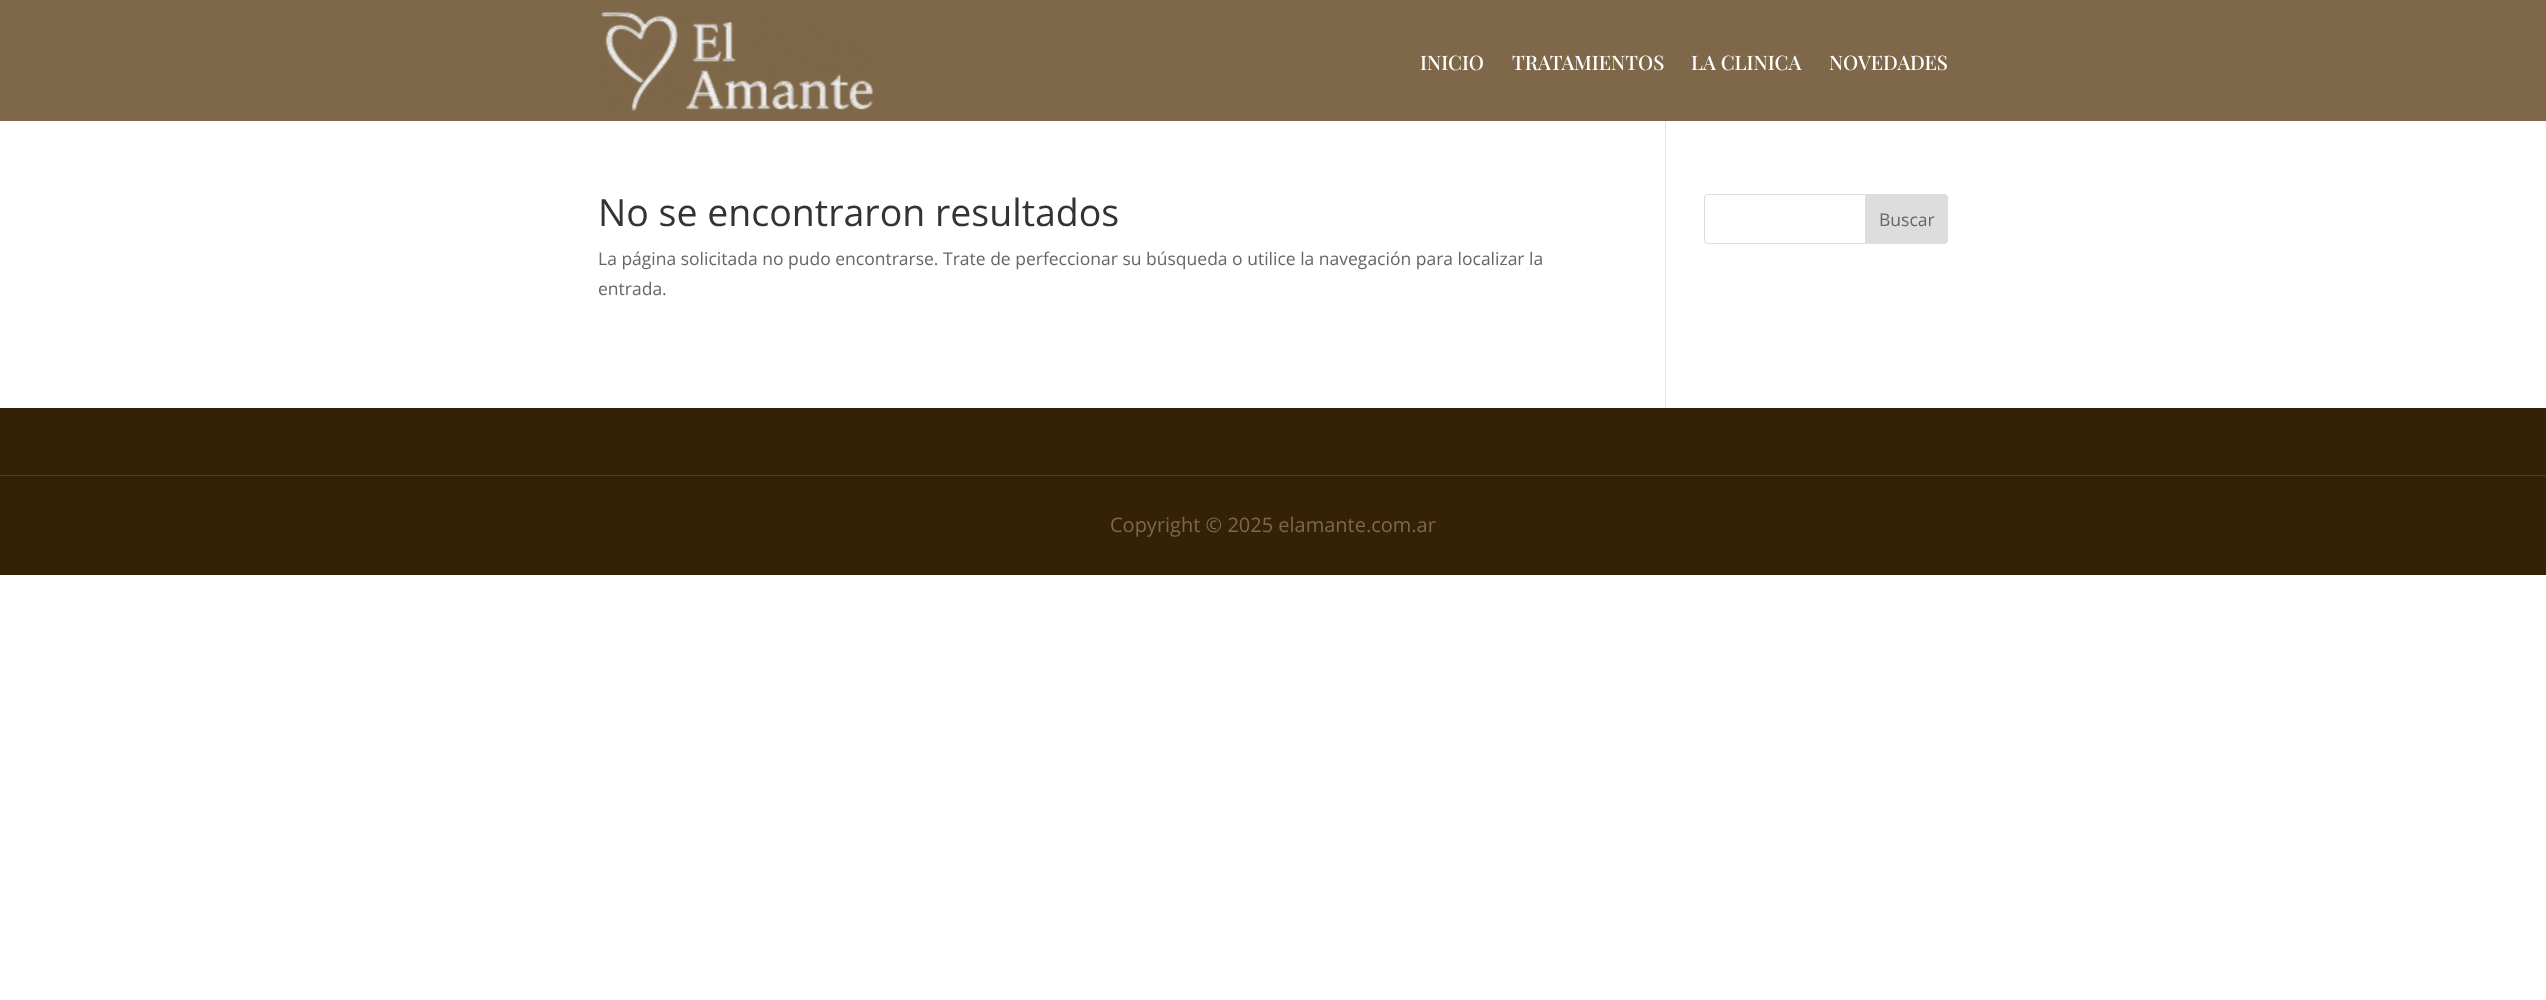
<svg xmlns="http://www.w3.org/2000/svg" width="2546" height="1000">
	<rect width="100%" height="100%" fill="#FFFFFF" />
	<rect x="0" y="0" width="2546" height="121" fill="#7E6849" />
	<image x="600" y="11" width="274" height="100" href="assets/img1.png" />
	<g font-family="Playfair Display" font-size="20" font-weight="500" fill="#FFFFFF">
		<text x="1420" y="70">INICIO</text>
		<text x="1512" y="70">TRATAMIENTOS</text>
		<text x="1691" y="70">LA CLINICA</text>
		<text x="1829" y="70">NOVEDADES</text>
	</g>
	<rect x="1665" y="121" width="1" height="287" fill="#E2E2E2" />
	<text x="598" y="226" font-family="Open Sans" font-size="37.5" fill="#333333">No se encontraron resultados</text>
	<g font-family="Open Sans" font-size="17.5" fill="#666666">
		<text x="598" y="265">La página solicitada no pudo encontrarse. Trate de perfeccionar su búsqueda o utilice la navegación para localizar la</text>
		<text x="598" y="295">entrada.</text>
	</g>
	<rect x="1704.5" y="194.5" width="243" height="49" rx="3.5" fill="none" stroke="#DDDDDD" />
	<path d="M1865.5 194.5H1944C1946 194.5 1947.5 196 1947.5 198V240C1947.5 242 1946 243.5 1944 243.5H1865.5Z" fill="#DDDDDD" stroke="#DDDDDD" />
	<text x="1879" y="226" font-family="Open Sans" font-size="17.5" fill="#666666">Buscar</text>
	<rect x="0" y="408" width="2546" height="167" fill="#342107" />
	<rect x="0" y="475" width="2546" height="1" fill="#4C3C25" />
	<text x="1110" y="532" font-family="Open Sans" font-size="20" fill="#7E6849">Copyright © 2025 elamante.com.ar</text>
</svg>
